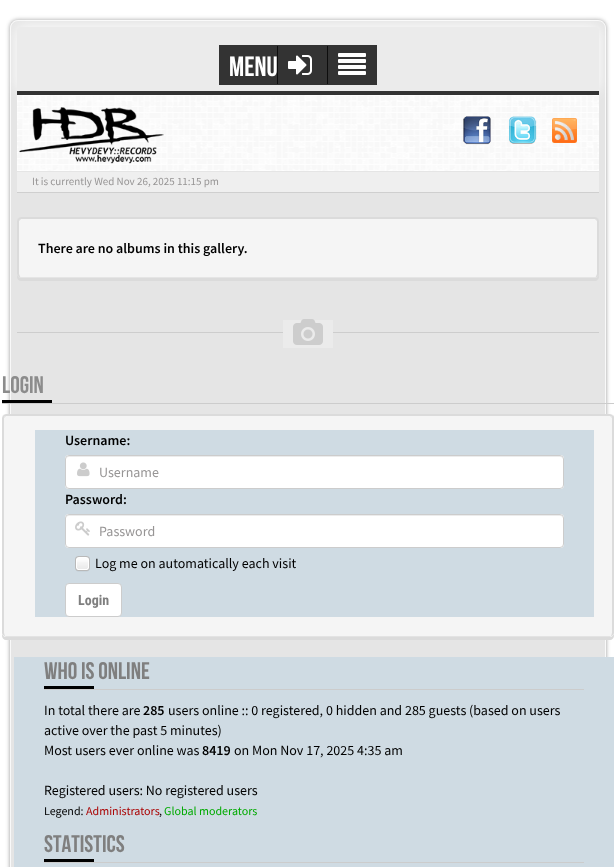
<svg xmlns="http://www.w3.org/2000/svg" width="616" height="867">
	<defs>
		<clipPath id="clip1"><path d="M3 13H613V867H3ZM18 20H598C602.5 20 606 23.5 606 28V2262C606 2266.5 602.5 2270 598 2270H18C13.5 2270 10 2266.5 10 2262V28C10 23.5 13.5 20 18 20Z" clip-rule="evenodd" /></clipPath>
	</defs>
	<rect width="100%" height="100%" fill="#FFFFFF" />
	<g clip-path="url(#clip1)">
		<rect x="10" y="20" width="596" height="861" rx="8" fill="#323232" fill-opacity="0.5" filter="blur(2px)" />
	</g>
	<rect x="10" y="20" width="596" height="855" rx="8" fill="#000000" fill-opacity="0.1" />
	<rect x="10.5" y="20.5" width="595" height="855" rx="7.5" fill="none" stroke="#FFFFFF" stroke-opacity="0.75" />
	<rect x="17" y="27" width="582" height="64" rx="4" fill="#FFFFFF" filter="blur(7px)" />
	<rect x="17" y="27" width="582" height="64" rx="4" fill="#EBEBEB" />
	<rect x="219" y="45" width="158" height="40" fill="#333333" />
	<text x="229" y="76" font-family="Bebas Neue" font-size="28" fill="#FFFFFF">MENU</text>
	<rect x="277" y="46" width="1" height="38" fill="#0D0D0D" />
	<image x="288" y="55" width="24" height="20" href="assets/img1.png" />
	<rect x="327" y="46" width="1" height="38" fill="#0D0D0D" />
	<image x="338" y="53" width="28" height="22" href="assets/img2.png" />
	<image x="17" y="95" width="582" height="76" href="assets/img3.png" />
	<rect x="17" y="91" width="582" height="4" fill="#333333" />
	<image x="19" y="107" width="145" height="57" href="assets/img4.png" />
	<image x="463" y="116" width="28" height="29" href="assets/img5.png" />
	<image x="509" y="116" width="28" height="28" href="assets/img6.png" />
	<image x="552" y="118" width="25" height="25" href="assets/img7.png" />
	<rect x="17" y="192" width="582" height="1" fill="#CFCFCF" />
	<rect x="17" y="172" width="582" height="20" fill="#EFEFEF" />
	<text x="32" y="185" font-family="Source Sans Pro" font-size="11" fill="#979595">It is currently Wed Nov 26, 2025 11:15 pm</text>
	<path d="M17 274V277C17 279 19 281 21 281H595C597 281 599 279 599 277V274C599 276 597 278 595 278H21C19 278 17 276 17 274Z" fill="#DBDBDB" />
	<path d="M21 219H595C596 219 597 220 597 221V274C597 276 596 277 595 277H21C20 277 19 276 19 274V221C19 220 20 219 21 219Z" fill="#F5F5F5" />
	<path d="M21 217L18 218L20 220L21 219H595L596 220L598 218L595 217Z" fill="#DBDBDB" />
	<path d="M599 274V221L598 218L596 220L597 221V274L596 277H597C598 276 599 275 599 274Z" fill="#DBDBDB" />
	<path d="M17 221V274L19 277H20L19 274V221L20 220L18 218Z" fill="#DBDBDB" />
	<text x="38" y="253" font-family="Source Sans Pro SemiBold" font-size="14" font-weight="600" fill="#000000">There are no albums in this gallery.</text>
	<rect x="17" y="332" width="582" height="1" fill="#CDCDCD" />
	<rect x="283" y="320" width="50" height="28" fill="#EBEBEB" />
	<image x="293" y="319" width="30" height="26" href="assets/img8.png" />
	<rect x="2" y="403" width="612" height="1" fill="#CCCCCC" />
	<text x="2" y="393" font-family="Bebas Neue" font-size="24" fill="#8C8C8C">LOGIN</text>
	<rect x="2" y="400" width="50" height="3" fill="#000000" />
	<path d="M2 633V636C2 638 4 640 6 640H610C612 640 614 638 614 636V633C614 635 612 637 610 637H6C4 637 2 635 2 633Z" fill="#DBDBDB" />
	<path d="M6 416H610C611 416 612 417 612 418V633C612 635 611 636 610 636H6C5 636 4 635 4 633V418C4 417 5 416 6 416Z" fill="#F5F5F5" />
	<path d="M6 414L3 415L5 417L6 416H610L611 417L613 415L610 414Z" fill="#DBDBDB" />
	<path d="M614 633V418C614 417 614 416 613 415L611 417L612 418V633L611 636H612C613 635 614 634 614 633Z" fill="#DBDBDB" />
	<path d="M6 637H610L612 636H611H610H6H5H4Z" fill="#E3E3E3" />
	<path d="M2 418V633C2 634 3 635 4 636H5L4 633V418L5 417L3 415Z" fill="#DBDBDB" />
	<rect x="35" y="430" width="559" height="187" fill="#CFDBE3" />
	<text x="65" y="445" font-family="Source Sans Pro SemiBold" font-size="14" font-weight="600" fill="#000000">Username:</text>
	<rect x="65" y="455" width="499" height="34" rx="4" fill="#FFFFFF" />
	<path d="M69 457H560C562 457 563 458 563 460C563 458 562 456 560 456H69C67 456 66 458 66 460C66 458 67 457 69 457Z" fill="#ECECEC" />
	<rect x="65.5" y="455.5" width="498" height="33" rx="3.5" fill="none" stroke="#CCCCCC" />
	<image x="77" y="462" width="13" height="15" href="assets/img9.png" />
	<text x="99" y="477" font-family="Source Sans Pro" font-size="14" fill="#979595">Username</text>
	<text x="65" y="504" font-family="Source Sans Pro SemiBold" font-size="14" font-weight="600" fill="#000000">Password:</text>
	<rect x="65" y="514" width="499" height="34" rx="4" fill="#FFFFFF" />
	<path d="M69 516H560C562 516 563 517 563 519C563 517 562 515 560 515H69C67 515 66 517 66 519C66 517 67 516 69 516Z" fill="#ECECEC" />
	<rect x="65.5" y="514.5" width="498" height="33" rx="3.5" fill="none" stroke="#CCCCCC" />
	<image x="75" y="521" width="15" height="15" href="assets/img10.png" />
	<text x="99" y="536" font-family="Source Sans Pro" font-size="14" fill="#979595">Password</text>
	<image x="75" y="556" width="15" height="16" href="assets/img11.png" />
	<text x="95" y="568" font-family="Source Sans Pro" font-size="14" fill="#000000">Log me on automatically each visit</text>
	<rect x="65.5" y="583.5" width="56" height="33" rx="3.5" fill="#FFFFFF" stroke="#CCCCCC" />
	<text x="78" y="605" font-family="Roboto Condensed" font-size="14" font-weight="700" fill="#7F7F7F">Login</text>
	<rect x="14" y="657" width="600" height="210" fill="#CFDBE3" />
	<rect x="44" y="689" width="540" height="1" fill="#CCCCCC" />
	<text x="44" y="679" font-family="Bebas Neue" font-size="24" fill="#7F7F7F">WHO IS ONLINE</text>
	<rect x="44" y="686" width="50" height="3" fill="#000000" />
	<text x="44" y="715" font-family="Source Sans Pro" font-size="14" fill="#000000">In total there are</text>
	<text x="143" y="715" font-family="Source Sans Pro SemiBold" font-size="14" font-weight="600" fill="#000000">285</text>
	<g font-family="Source Sans Pro" font-size="14" fill="#000000">
		<text x="168" y="715">users online :: 0 registered, 0 hidden and 285 guests (based on users</text>
		<text x="44" y="735">active over the past 5 minutes)</text>
		<text x="44" y="755">Most users ever online was</text>
	</g>
	<text x="202" y="755" font-family="Source Sans Pro SemiBold" font-size="14" font-weight="600" fill="#000000">8419</text>
	<g font-family="Source Sans Pro" font-size="14" fill="#000000">
		<text x="234" y="755">on Mon Nov 17, 2025 4:35 am</text>
		<text x="44" y="795">Registered users: No registered users</text>
	</g>
	<text x="44" y="815" font-family="Source Sans Pro" font-size="12" fill="#000000">Legend:</text>
	<text x="86" y="815" font-family="Source Sans Pro" font-size="12" fill="#AA0000">Administrators</text>
	<text x="159" y="815" font-family="Source Sans Pro" font-size="12" fill="#000000">,</text>
	<text x="164" y="815" font-family="Source Sans Pro" font-size="12" fill="#00AA00">Global moderators</text>
	<rect x="44" y="862" width="540" height="1" fill="#CCCCCC" />
	<text x="44" y="852" font-family="Bebas Neue" font-size="24" fill="#7F7F7F">STATISTICS</text>
	<rect x="44" y="859" width="50" height="3" fill="#000000" />
</svg>
